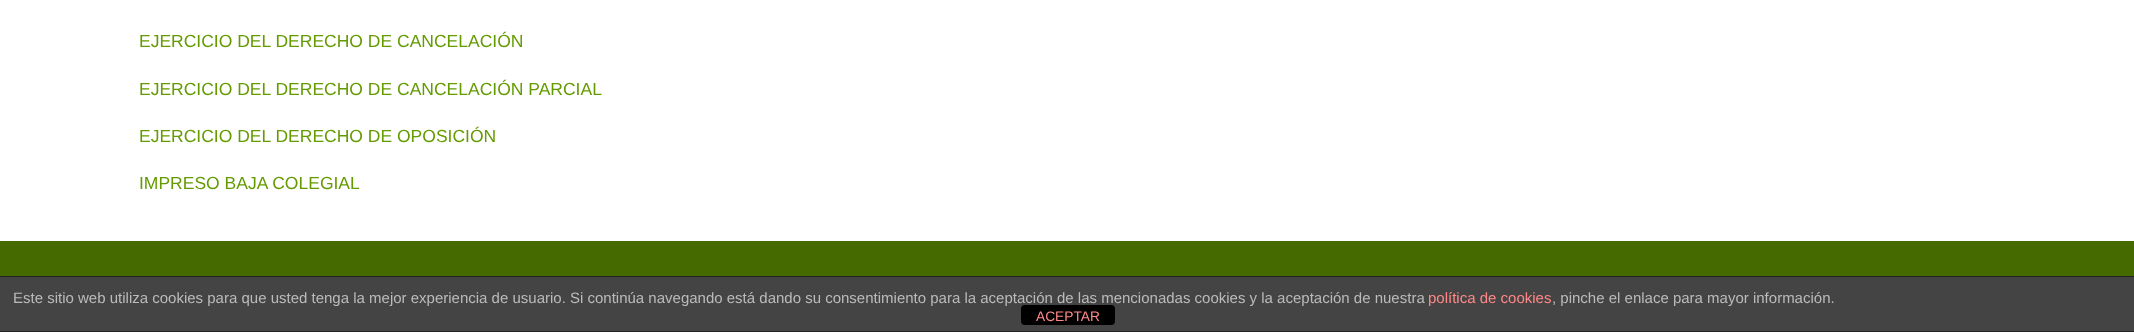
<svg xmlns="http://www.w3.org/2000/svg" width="2134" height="332">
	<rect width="100%" height="100%" fill="#FFFFFF" />
	<g font-family="Liberation Sans" font-size="17.5" fill="#649B00">
		<text x="139" y="47">EJERCICIO DEL DERECHO DE CANCELACIÓN</text>
		<text x="139" y="95">EJERCICIO DEL DERECHO DE CANCELACIÓN PARCIAL</text>
		<text x="139" y="142">EJERCICIO DEL DERECHO DE OPOSICIÓN</text>
		<text x="139" y="189">IMPRESO BAJA COLEGIAL</text>
	</g>
	<rect x="0" y="241" width="2134" height="35" fill="#446A00" />
	<rect x="0" y="277" width="2134" height="54" fill="#444444" />
	<rect x="0" y="276" width="2134" height="1" fill="#222222" />
	<rect x="0" y="331" width="2134" height="1" fill="#222222" />
	<rect x="1021" y="305" width="94" height="20" rx="4" fill="#000000" />
	<text x="13" y="303" font-family="Liberation Sans" font-size="15" fill="#BBBBBB">Este sitio web utiliza cookies para que usted tenga la mejor experiencia de usuario. Si continúa navegando está dando su consentimiento para la aceptación de las mencionadas cookies y la aceptación de nuestra</text>
	<text x="1428" y="303" font-family="Liberation Sans" font-size="15" fill="#FF8888">política de cookies</text>
	<text x="1552" y="303" font-family="Liberation Sans" font-size="15" fill="#BBBBBB">, pinche el enlace para mayor información.</text>
	<text x="1036" y="321" font-family="Liberation Sans" font-size="13.75" fill="#FF8888">ACEPTAR</text>
</svg>
